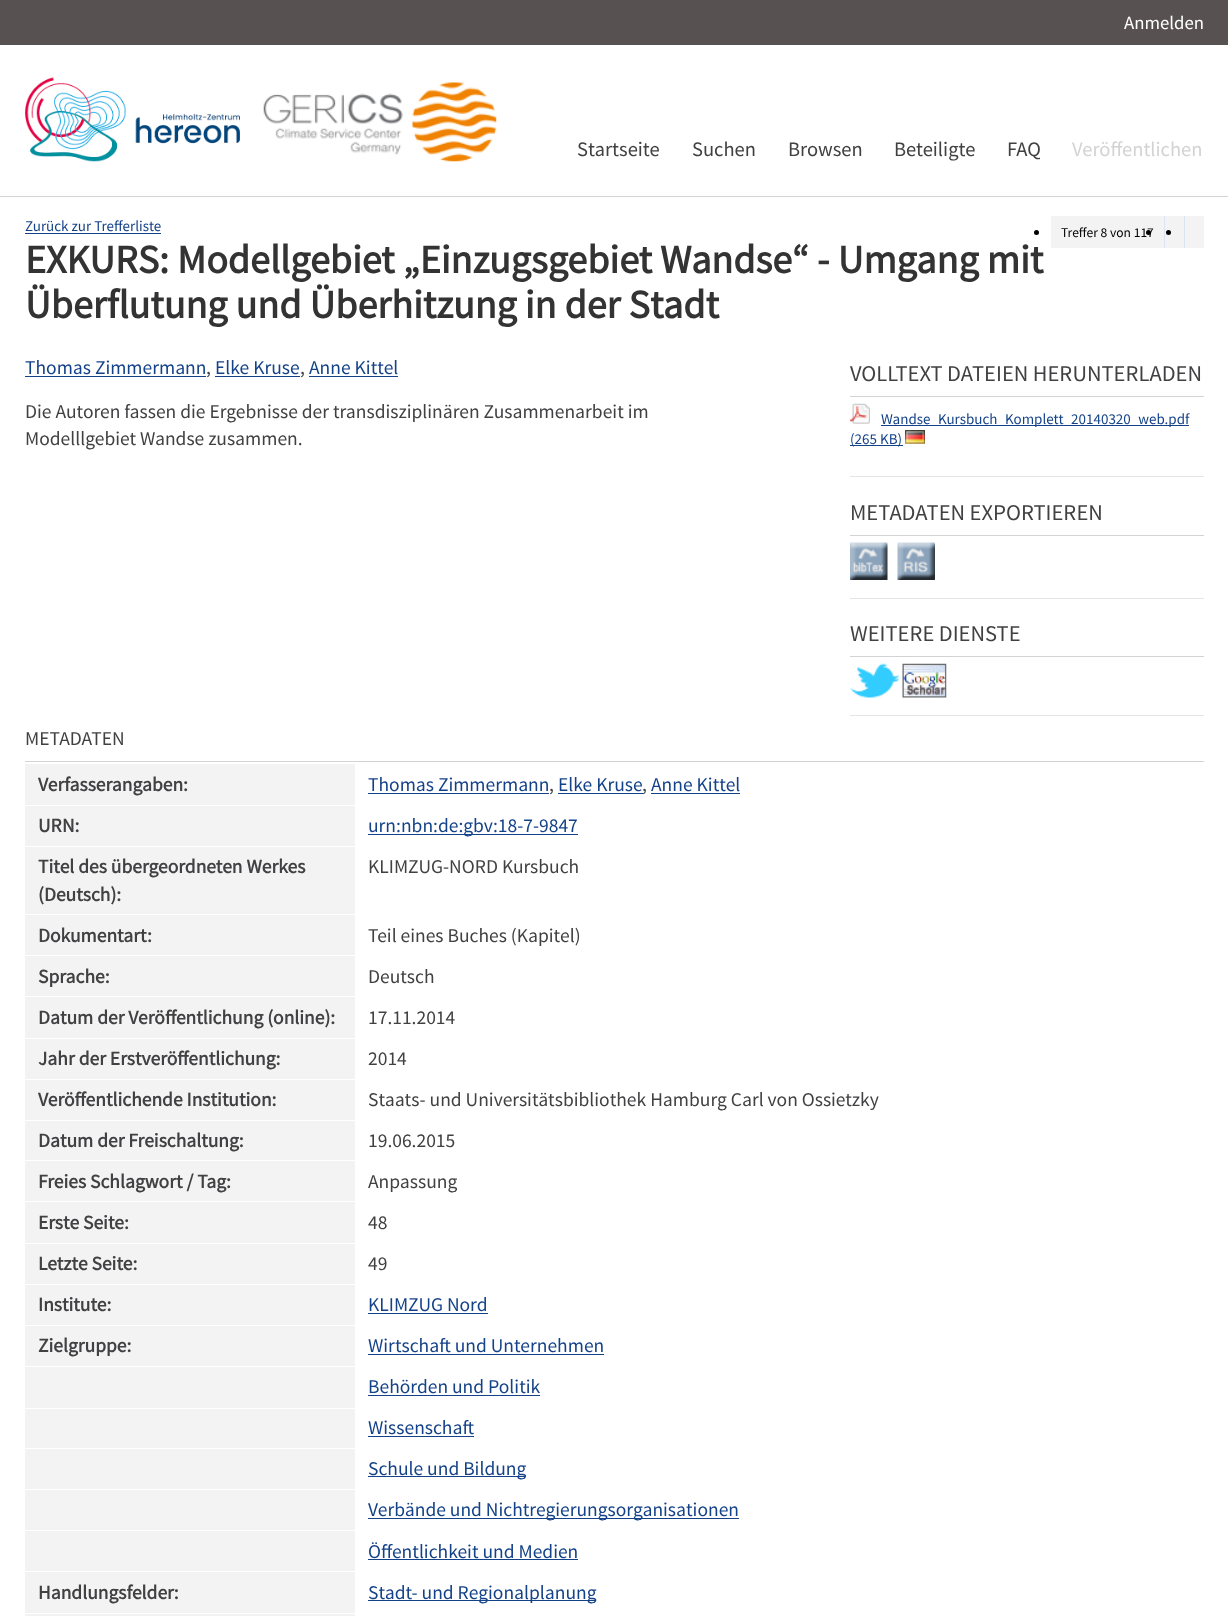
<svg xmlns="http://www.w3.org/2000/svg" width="1228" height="1616">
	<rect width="100%" height="100%" fill="#FFFFFF" />
	<rect x="0" y="0" width="1228" height="45" fill="#585151" />
	<text x="1124" y="29" font-family="Source Sans Pro" font-size="18.75" fill="#FFFFFF">Anmelden</text>
	<rect x="0" y="196" width="1228" height="1" fill="#D2D3D4" />
	<image x="25" y="77" width="215" height="85" href="assets/img1.png" />
	<image x="263" y="82" width="234" height="80" href="assets/img2.png" />
	<g font-family="Source Sans Pro" font-size="20.5" fill="#414042">
		<text x="577" y="156">Startseite</text>
		<text x="692" y="156">Suchen</text>
		<text x="788" y="156">Browsen</text>
		<text x="894" y="156">Beteiligte</text>
		<text x="1007" y="156">FAQ</text>
	</g>
	<text x="1072" y="156" font-family="Source Sans Pro" font-size="20.5" fill="#D3D3D3">Veröffentlichen</text>
	<text x="25" y="231" font-family="Source Sans Pro" font-size="15" fill="#144288">Zurück zur Trefferliste</text>
	<rect x="25" y="233" width="136" height="1" fill="#144288" />
	<rect x="1051" y="216" width="153" height="32" fill="#F3F3F3" />
	<circle cx="1036.5" cy="232.5" r="2.5" fill="#000000" />
	<text x="1061" y="237" font-family="Source Sans Pro" font-size="13.5" fill="#000000">Treffer 8 von 117</text>
	<rect x="1164" y="216" width="1" height="32" fill="#DAE5F3" />
	<circle cx="1148.5" cy="232.5" r="2.5" fill="#000000" />
	<rect x="1184" y="216" width="1" height="32" fill="#DAE5F3" />
	<circle cx="1168.5" cy="232.5" r="2.5" fill="#000000" />
	<g font-family="Source Sans Pro" font-size="40" font-weight="700" fill="#333333">
		<text x="25" y="273">EXKURS: Modellgebiet „Einzugsgebiet Wandse“ - Umgang mit</text>
		<text x="25" y="318">Überflutung und Überhitzung in der Stadt</text>
	</g>
	<text x="25" y="374" font-family="Source Sans Pro" font-size="19.5" fill="#144288">Thomas Zimmermann</text>
	<rect x="25" y="376" width="181" height="1" fill="#144288" />
	<text x="206" y="374" font-family="Source Sans Pro" font-size="19.5" fill="#414042">,</text>
	<text x="215" y="374" font-family="Source Sans Pro" font-size="19.5" fill="#144288">Elke Kruse</text>
	<rect x="215" y="376" width="85" height="1" fill="#144288" />
	<text x="300" y="374" font-family="Source Sans Pro" font-size="19.5" fill="#414042">,</text>
	<text x="309" y="374" font-family="Source Sans Pro" font-size="19.5" fill="#144288">Anne Kittel</text>
	<rect x="309" y="376" width="89" height="1" fill="#144288" />
	<g font-family="Source Sans Pro" font-size="19.5" fill="#414042">
		<text x="25" y="418">Die Autoren fassen die Ergebnisse der transdisziplinären Zusammenarbeit im</text>
		<text x="25" y="445">Modelllgebiet Wandse zusammen.</text>
	</g>
	<rect x="850" y="476" width="354" height="1" fill="#E2E6E9" />
	<rect x="850" y="396" width="354" height="1" fill="#D2D3D4" />
	<text x="850" y="381" font-family="Source Sans Pro" font-size="22.5" fill="#414042">VOLLTEXT DATEIEN HERUNTERLADEN</text>
	<image x="850" y="403" width="20" height="21" href="assets/img3.png" />
	<rect x="881" y="425" width="308" height="1" fill="#144288" />
	<text x="881" y="424" font-family="Source Sans Pro" font-size="15" fill="#144288">Wandse_Kursbuch_Komplett_20140320_web.pdf</text>
	<rect x="850" y="445" width="53" height="1" fill="#144288" />
	<text x="850" y="444" font-family="Source Sans Pro" font-size="15" fill="#144288">(265 KB)</text>
	<image x="905" y="430" width="20" height="14" href="assets/img4.png" />
	<rect x="850" y="598" width="354" height="1" fill="#E2E6E9" />
	<rect x="850" y="535" width="354" height="1" fill="#D2D3D4" />
	<text x="850" y="520" font-family="Source Sans Pro" font-size="22.5" fill="#414042">METADATEN EXPORTIEREN</text>
	<image x="850" y="542" width="38" height="38" href="assets/img5.png" />
	<image x="897" y="542" width="38" height="38" href="assets/img6.png" />
	<rect x="850" y="715" width="354" height="1" fill="#E2E6E9" />
	<rect x="850" y="656" width="354" height="1" fill="#D2D3D4" />
	<text x="850" y="641" font-family="Source Sans Pro" font-size="22.5" fill="#414042">WEITERE DIENSTE</text>
	<image x="850" y="663" width="49" height="35" href="assets/img7.png" />
	<image x="902" y="663" width="45" height="35" href="assets/img8.png" />
	<rect x="25" y="761" width="1179" height="1" fill="#D2D3D4" />
	<text x="25" y="745" font-family="Source Sans Pro" font-size="19.5" fill="#414042">METADATEN</text>
	<rect x="25" y="764" width="330" height="41" fill="#F3F3F3" />
	<text x="38" y="791" font-family="Source Sans Pro" font-size="19.5" font-weight="700" fill="#414042">Verfasserangaben:</text>
	<text x="368" y="791" font-family="Source Sans Pro" font-size="19.5" fill="#144288">Thomas Zimmermann</text>
	<rect x="368" y="793" width="181" height="1" fill="#144288" />
	<text x="549" y="791" font-family="Source Sans Pro" font-size="19.5" fill="#414042">,</text>
	<text x="558" y="791" font-family="Source Sans Pro" font-size="19.5" fill="#144288">Elke Kruse</text>
	<rect x="558" y="793" width="85" height="1" fill="#144288" />
	<text x="642" y="791" font-family="Source Sans Pro" font-size="19.5" fill="#414042">,</text>
	<text x="651" y="791" font-family="Source Sans Pro" font-size="19.5" fill="#144288">Anne Kittel</text>
	<rect x="651" y="793" width="89" height="1" fill="#144288" />
	<rect x="25" y="806" width="330" height="40" fill="#F3F3F3" />
	<text x="38" y="832" font-family="Source Sans Pro" font-size="19.5" font-weight="700" fill="#414042">URN:</text>
	<rect x="368" y="834" width="210" height="1" fill="#144288" />
	<text x="368" y="832" font-family="Source Sans Pro" font-size="19.5" fill="#144288">urn:nbn:de:gbv:18-7-9847</text>
	<rect x="25" y="847" width="330" height="67" fill="#F3F3F3" />
	<g font-family="Source Sans Pro" font-size="19.5" font-weight="700" fill="#414042">
		<text x="38" y="873">Titel des übergeordneten Werkes</text>
		<text x="38" y="901">(Deutsch):</text>
	</g>
	<text x="368" y="873" font-family="Source Sans Pro" font-size="19.5" fill="#414042">KLIMZUG-NORD Kursbuch</text>
	<rect x="25" y="915" width="330" height="40" fill="#F3F3F3" />
	<text x="38" y="942" font-family="Source Sans Pro" font-size="19.5" font-weight="700" fill="#414042">Dokumentart:</text>
	<text x="368" y="942" font-family="Source Sans Pro" font-size="19.5" fill="#414042">Teil eines Buches (Kapitel)</text>
	<rect x="25" y="956" width="330" height="82" fill="#F3F3F3" />
	<rect x="25" y="996" width="331" height="1" fill="#FFFFFF" />
	<text x="38" y="983" font-family="Source Sans Pro" font-size="19.5" font-weight="700" fill="#414042">Sprache:</text>
	<text x="368" y="983" font-family="Source Sans Pro" font-size="19.5" fill="#414042">Deutsch</text>
	<text x="38" y="1024" font-family="Source Sans Pro" font-size="19.5" font-weight="700" fill="#414042">Datum der Veröffentlichung (online):</text>
	<text x="368" y="1024" font-family="Source Sans Pro" font-size="19.5" fill="#414042">17.11.2014</text>
	<rect x="25" y="1039" width="330" height="40" fill="#F3F3F3" />
	<text x="38" y="1065" font-family="Source Sans Pro" font-size="19.5" font-weight="700" fill="#414042">Jahr der Erstveröffentlichung:</text>
	<text x="368" y="1065" font-family="Source Sans Pro" font-size="19.5" fill="#414042">2014</text>
	<rect x="25" y="1080" width="330" height="40" fill="#F3F3F3" />
	<text x="38" y="1106" font-family="Source Sans Pro" font-size="19.5" font-weight="700" fill="#414042">Veröffentlichende Institution:</text>
	<text x="368" y="1106" font-family="Source Sans Pro" font-size="19.5" fill="#414042">Staats- und Universitätsbibliothek Hamburg Carl von Ossietzky</text>
	<rect x="25" y="1121" width="330" height="39" fill="#F3F3F3" />
	<text x="38" y="1147" font-family="Source Sans Pro" font-size="19.5" font-weight="700" fill="#414042">Datum der Freischaltung:</text>
	<text x="368" y="1147" font-family="Source Sans Pro" font-size="19.5" fill="#414042">19.06.2015</text>
	<rect x="25" y="1161" width="330" height="82" fill="#F3F3F3" />
	<rect x="25" y="1201" width="331" height="1" fill="#FFFFFF" />
	<text x="38" y="1188" font-family="Source Sans Pro" font-size="19.5" font-weight="700" fill="#414042">Freies Schlagwort / Tag:</text>
	<text x="368" y="1188" font-family="Source Sans Pro" font-size="19.5" fill="#414042">Anpassung</text>
	<text x="38" y="1229" font-family="Source Sans Pro" font-size="19.5" font-weight="700" fill="#414042">Erste Seite:</text>
	<text x="368" y="1229" font-family="Source Sans Pro" font-size="19.5" fill="#414042">48</text>
	<rect x="25" y="1244" width="330" height="40" fill="#F3F3F3" />
	<text x="38" y="1270" font-family="Source Sans Pro" font-size="19.5" font-weight="700" fill="#414042">Letzte Seite:</text>
	<text x="368" y="1270" font-family="Source Sans Pro" font-size="19.5" fill="#414042">49</text>
	<rect x="25" y="1285" width="330" height="40" fill="#F3F3F3" />
	<text x="38" y="1311" font-family="Source Sans Pro" font-size="19.5" font-weight="700" fill="#414042">Institute:</text>
	<text x="368" y="1311" font-family="Source Sans Pro" font-size="19.5" fill="#144288">KLIMZUG Nord</text>
	<rect x="368" y="1313" width="120" height="1" fill="#144288" />
	<rect x="25" y="1326" width="330" height="40" fill="#F3F3F3" />
	<text x="38" y="1352" font-family="Source Sans Pro" font-size="19.5" font-weight="700" fill="#414042">Zielgruppe:</text>
	<text x="368" y="1352" font-family="Source Sans Pro" font-size="19.5" fill="#144288">Wirtschaft und Unternehmen</text>
	<rect x="368" y="1354" width="236" height="1" fill="#144288" />
	<rect x="25" y="1367" width="330" height="41" fill="#F3F3F3" />
	<text x="368" y="1393" font-family="Source Sans Pro" font-size="19.5" fill="#144288">Behörden und Politik</text>
	<rect x="368" y="1395" width="172" height="1" fill="#144288" />
	<rect x="25" y="1409" width="330" height="39" fill="#F3F3F3" />
	<text x="368" y="1434" font-family="Source Sans Pro" font-size="19.5" fill="#144288">Wissenschaft</text>
	<rect x="368" y="1436" width="106" height="1" fill="#144288" />
	<rect x="25" y="1449" width="330" height="40" fill="#F3F3F3" />
	<rect x="368" y="1476" width="158" height="1" fill="#144288" />
	<text x="368" y="1475" font-family="Source Sans Pro" font-size="19.5" fill="#144288">Schule und Bildung</text>
	<rect x="25" y="1490" width="330" height="40" fill="#F3F3F3" />
	<rect x="368" y="1518" width="371" height="1" fill="#144288" />
	<text x="368" y="1516" font-family="Source Sans Pro" font-size="19.5" fill="#144288">Verbände und Nichtregierungsorganisationen</text>
	<rect x="25" y="1531" width="330" height="40" fill="#F3F3F3" />
	<text x="368" y="1558" font-family="Source Sans Pro" font-size="19.5" fill="#144288">Öffentlichkeit und Medien</text>
	<rect x="368" y="1559" width="210" height="1" fill="#144288" />
	<rect x="25" y="1572" width="330" height="41" fill="#F3F3F3" />
	<text x="38" y="1599" font-family="Source Sans Pro" font-size="19.5" font-weight="700" fill="#414042">Handlungsfelder:</text>
	<rect x="368" y="1600" width="228" height="1" fill="#144288" />
	<text x="368" y="1599" font-family="Source Sans Pro" font-size="19.5" fill="#144288">Stadt- und Regionalplanung</text>
	<rect x="25" y="1614" width="330" height="2" fill="#F3F3F3" />
</svg>
